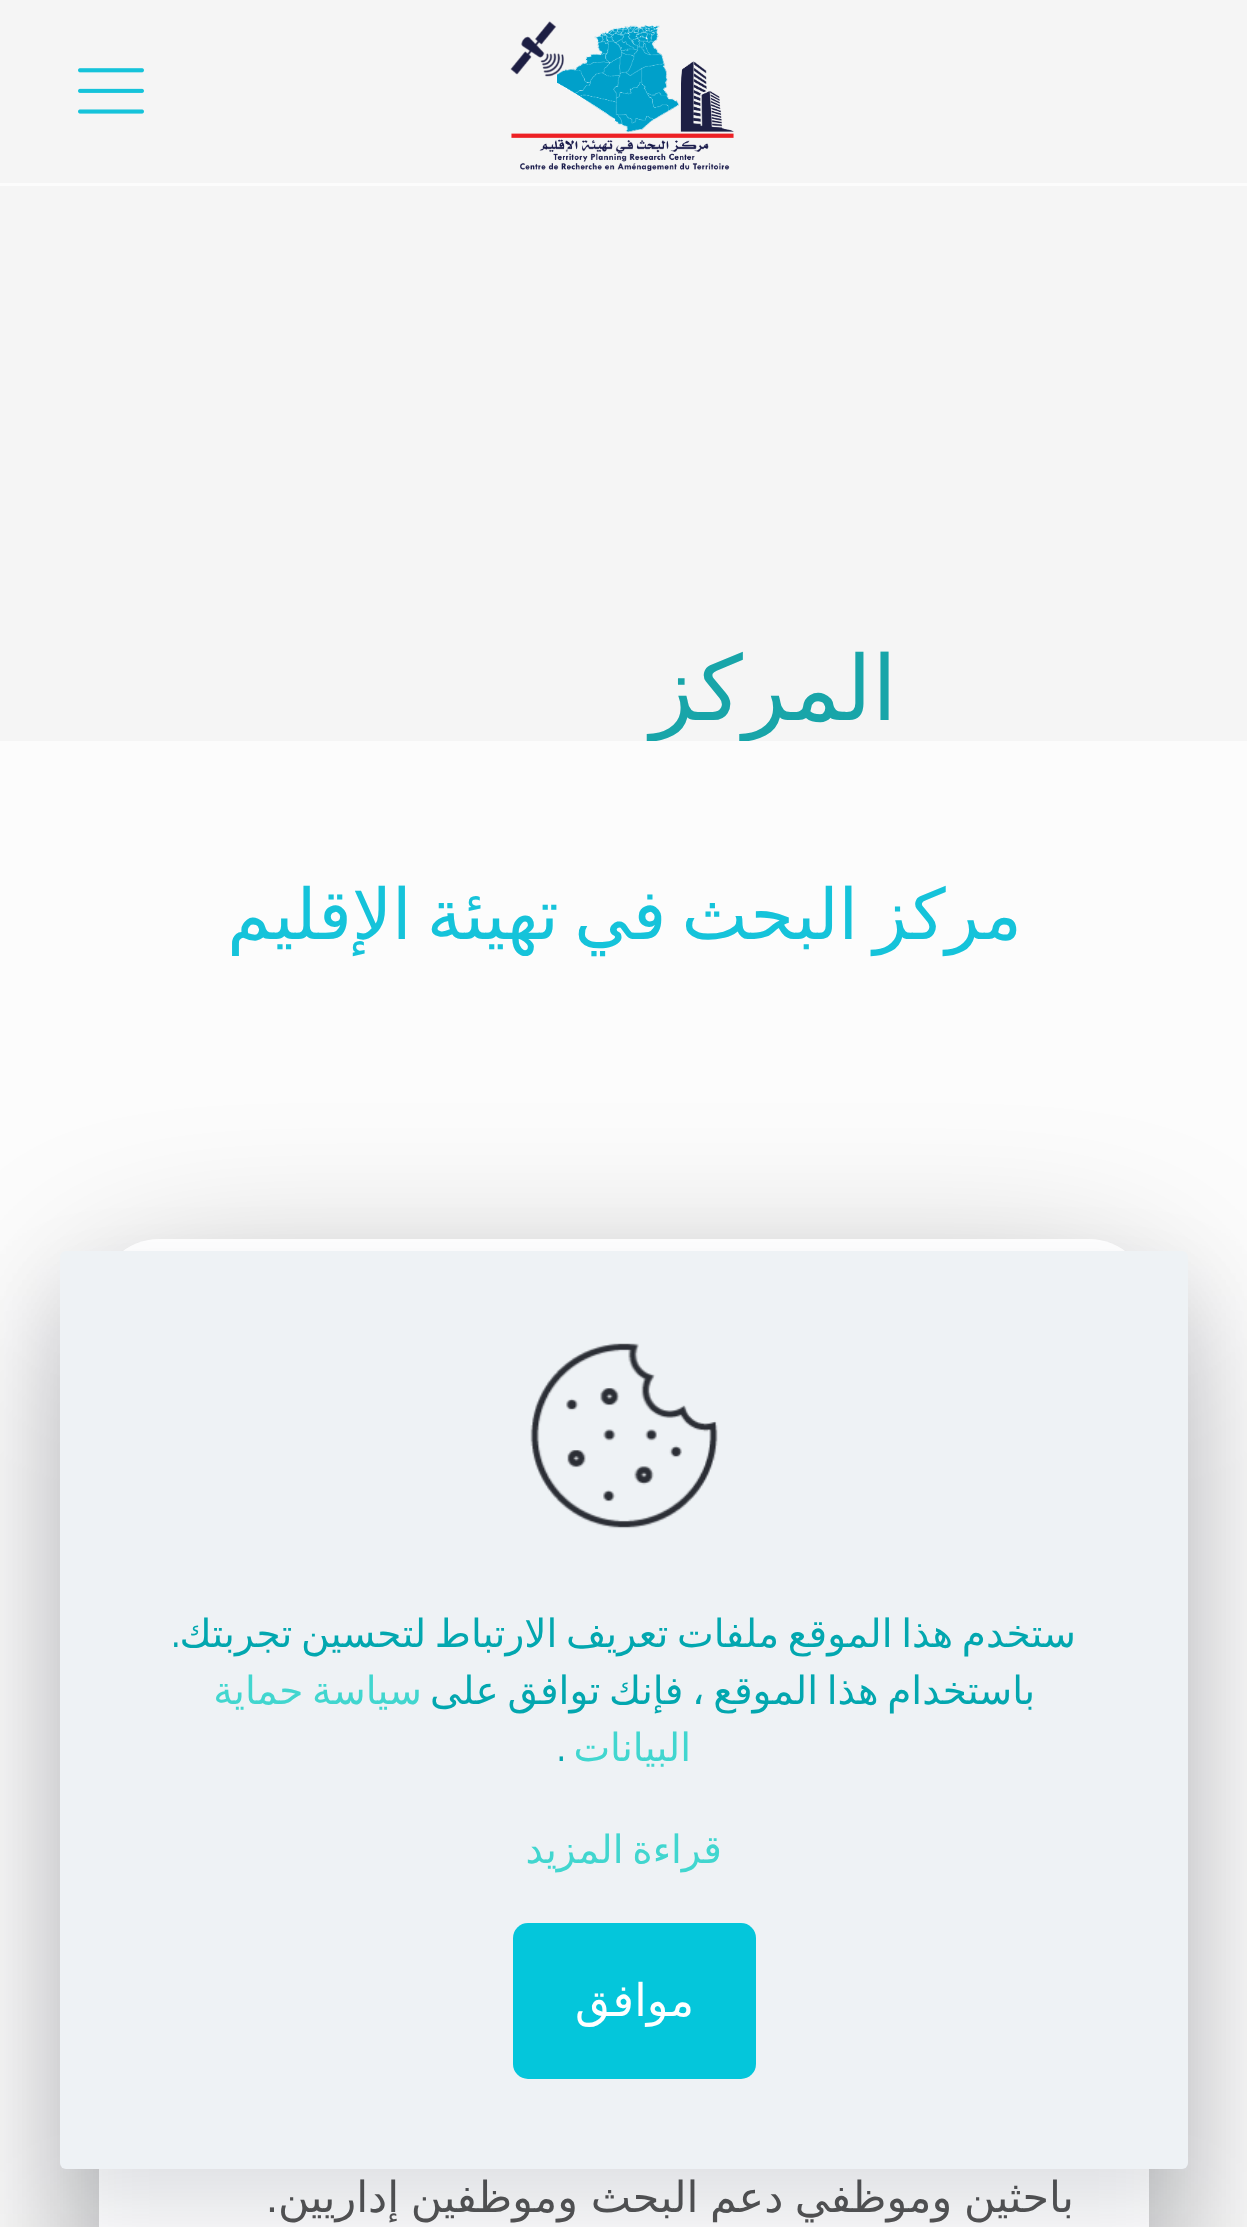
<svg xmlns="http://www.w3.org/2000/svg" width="1247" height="2227">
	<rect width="100%" height="100%" fill="#F5F5F5" />
	<image x="510" y="21" width="224" height="150" href="assets/img1.png" />
	<image x="78" y="68" width="66" height="46" href="assets/img2.png" />
	<rect x="0" y="183" width="1247" height="3" fill="#FCFCFC" />
	<text x="897" y="720" font-family="DejaVu Sans" font-size="90" direction="rtl" fill="#18A5A9">المركز</text>
	<rect x="0" y="741" width="1247" height="1486" fill="#FCFCFC" />
	<text x="1022" y="939" word-spacing="-7" font-family="DejaVu Sans" font-size="70.25" direction="rtl" fill="#15C3DA">مركز البحث في تهيئة الإقليم</text>
	<rect x="99" y="1299" width="1050" height="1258" rx="60" fill="#000000" fill-opacity="0.3" filter="blur(90px)" />
	<rect x="99" y="1239" width="1050" height="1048" rx="60" fill="#FFFFFF" />
	<g font-family="DejaVu Sans" font-size="42.9" direction="rtl" fill="#555555">
		<text x="1074" y="2212" word-spacing="-2">باحثين وموظفي دعم البحث</text>
		<text x="578" y="2212" word-spacing="-2">وموظفين إداريين</text>
	</g>
	<text x="278" y="2212" font-family="Liberation Sans" font-size="42.9" direction="rtl" fill="#555555">.</text>
	<rect x="60" y="1296" width="1128" height="918" rx="6" fill="#010727" fill-opacity="0.13" filter="blur(45px)" />
	<rect x="60" y="1251" width="1128" height="918" rx="6" fill="#EEF2F5" />
	<image x="530" y="1343" width="188" height="186" href="assets/img3.png" />
	<text x="1076" y="1647" word-spacing="-3.75" font-family="DejaVu Sans" font-size="39" direction="rtl" fill="#02A7AF">ستخدم هذا الموقع ملفات تعريف الارتباط لتحسين تجربتك</text>
	<text x="180" y="1647" font-family="Cairo" font-size="39" direction="rtl" fill="#02A7AF">.</text>
	<text x="1035" y="1704" word-spacing="-3.75" font-family="DejaVu Sans" font-size="39" direction="rtl" fill="#02A7AF">باستخدام هذا الموقع ، فإنك توافق على</text>
	<g font-family="DejaVu Sans" font-size="39" direction="rtl" fill="#41D6CF">
		<text x="422" y="1704" word-spacing="-3.75">سياسة حماية</text>
		<text x="691" y="1761">البيانات</text>
	</g>
	<text x="557" y="1761" font-family="Cairo" font-size="39" fill="#02A7AF">.</text>
	<text x="722" y="1863" word-spacing="-3.75" font-family="DejaVu Sans" font-size="39" direction="rtl" fill="#41D6CF">قراءة المزيد</text>
	<rect x="513" y="1923" width="243" height="156" rx="15" fill="#04C6DB" />
	<text x="694" y="2016" font-family="DejaVu Sans" font-size="45" direction="rtl" fill="#FFFFFF">موافق</text>
</svg>
